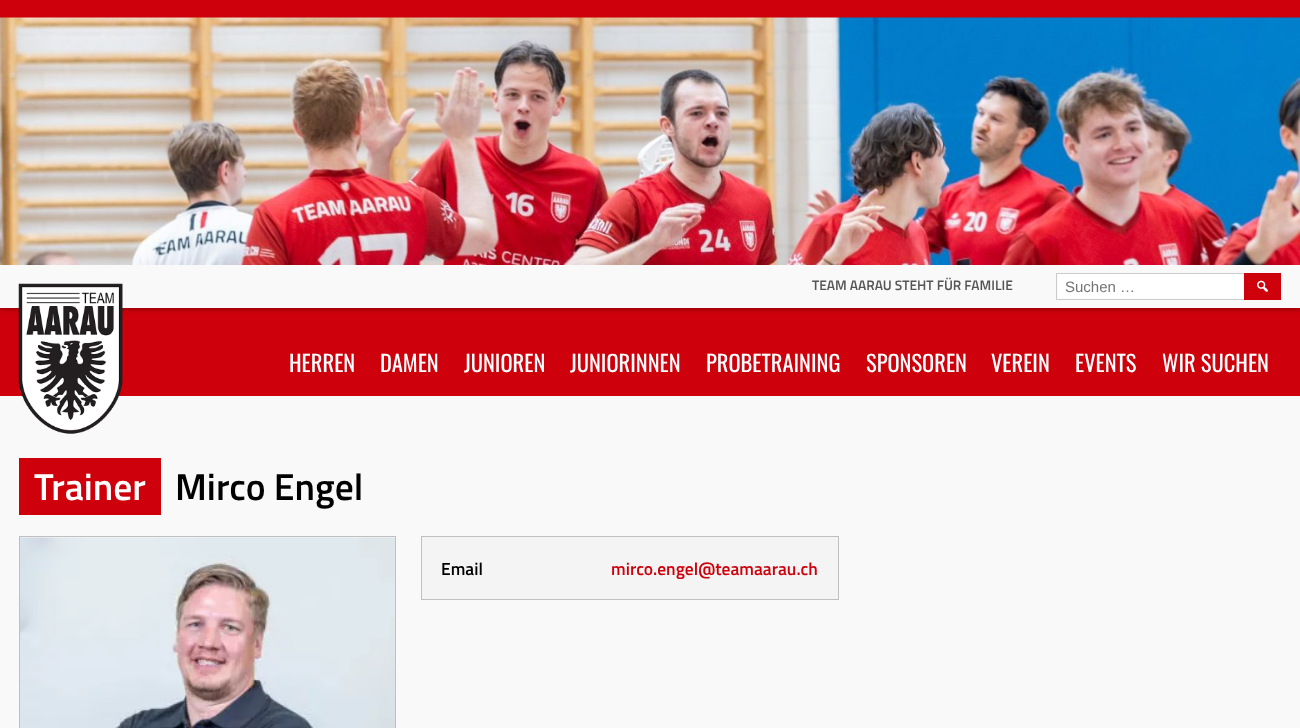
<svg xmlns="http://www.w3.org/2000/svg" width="1300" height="728">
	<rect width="100%" height="100%" fill="#F9F9F9" />
	<rect x="0" y="0" width="1300" height="396" fill="#CE000B" />
	<rect x="0" y="20" width="1300" height="290" fill="#000000" fill-opacity="0.25" filter="blur(2px)" />
	<rect x="0" y="265" width="1300" height="43" fill="#F9F9F9" />
	<image x="0" y="17" width="1300" height="248" href="assets/img1.png" />
	<image x="18" y="283" width="105" height="151" href="assets/img2.png" />
	<text x="812" y="290" font-family="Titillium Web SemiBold" font-size="13.75" font-weight="600" fill="#555555">TEAM AARAU STEHT FÜR FAMILIE</text>
	<rect x="1058" y="274" width="186" height="25" fill="#FFFFFF" />
	<rect x="1056" y="273" width="188" height="1" fill="#CCCCCC" />
	<rect x="1056" y="299" width="188" height="1" fill="#CCCCCC" />
	<rect x="1056" y="273" width="1" height="27" fill="#CCCCCC" />
	<text x="1065" y="292" font-family="Liberation Sans" font-size="15" fill="#757575">Suchen …</text>
	<rect x="1244" y="273" width="37" height="27" fill="#CE000B" />
	<image x="1257" y="280" width="11" height="12" href="assets/img3.png" />
	<g font-family="Oswald" font-size="22.5" fill="#FFFFFF">
		<text x="289" y="372">HERREN</text>
		<text x="380" y="372">DAMEN</text>
		<text x="464" y="372">JUNIOREN</text>
		<text x="570" y="372">JUNIORINNEN</text>
		<text x="706" y="372">PROBETRAINING</text>
		<text x="866" y="372">SPONSOREN</text>
		<text x="991" y="372">VEREIN</text>
		<text x="1075" y="372">EVENTS</text>
		<text x="1162" y="372">WIR SUCHEN</text>
	</g>
	<rect x="19" y="458" width="142" height="57" fill="#CE000B" />
	<text x="34" y="500" font-family="Titillium Web SemiBold" font-size="37.5" font-weight="600" fill="#FFFFFF">Trainer</text>
	<text x="175" y="500" font-family="Titillium Web SemiBold" font-size="37.5" font-weight="600" fill="#000000">Mirco Engel</text>
	<rect x="19.5" y="536.5" width="376" height="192" fill="none" stroke="#C0C0C0" />
	<image x="20" y="537" width="375" height="191" href="assets/img4.png" />
	<rect x="421.5" y="536.5" width="417" height="63" fill="#F4F4F4" stroke="#C0C0C0" />
	<text x="441" y="575" font-family="Titillium Web SemiBold" font-size="17.5" font-weight="600" fill="#000000">Email</text>
	<text x="611" y="575" font-family="Titillium Web SemiBold" font-size="17.5" font-weight="600" fill="#CE000B">mirco.engel@teamaarau.ch</text>
</svg>
